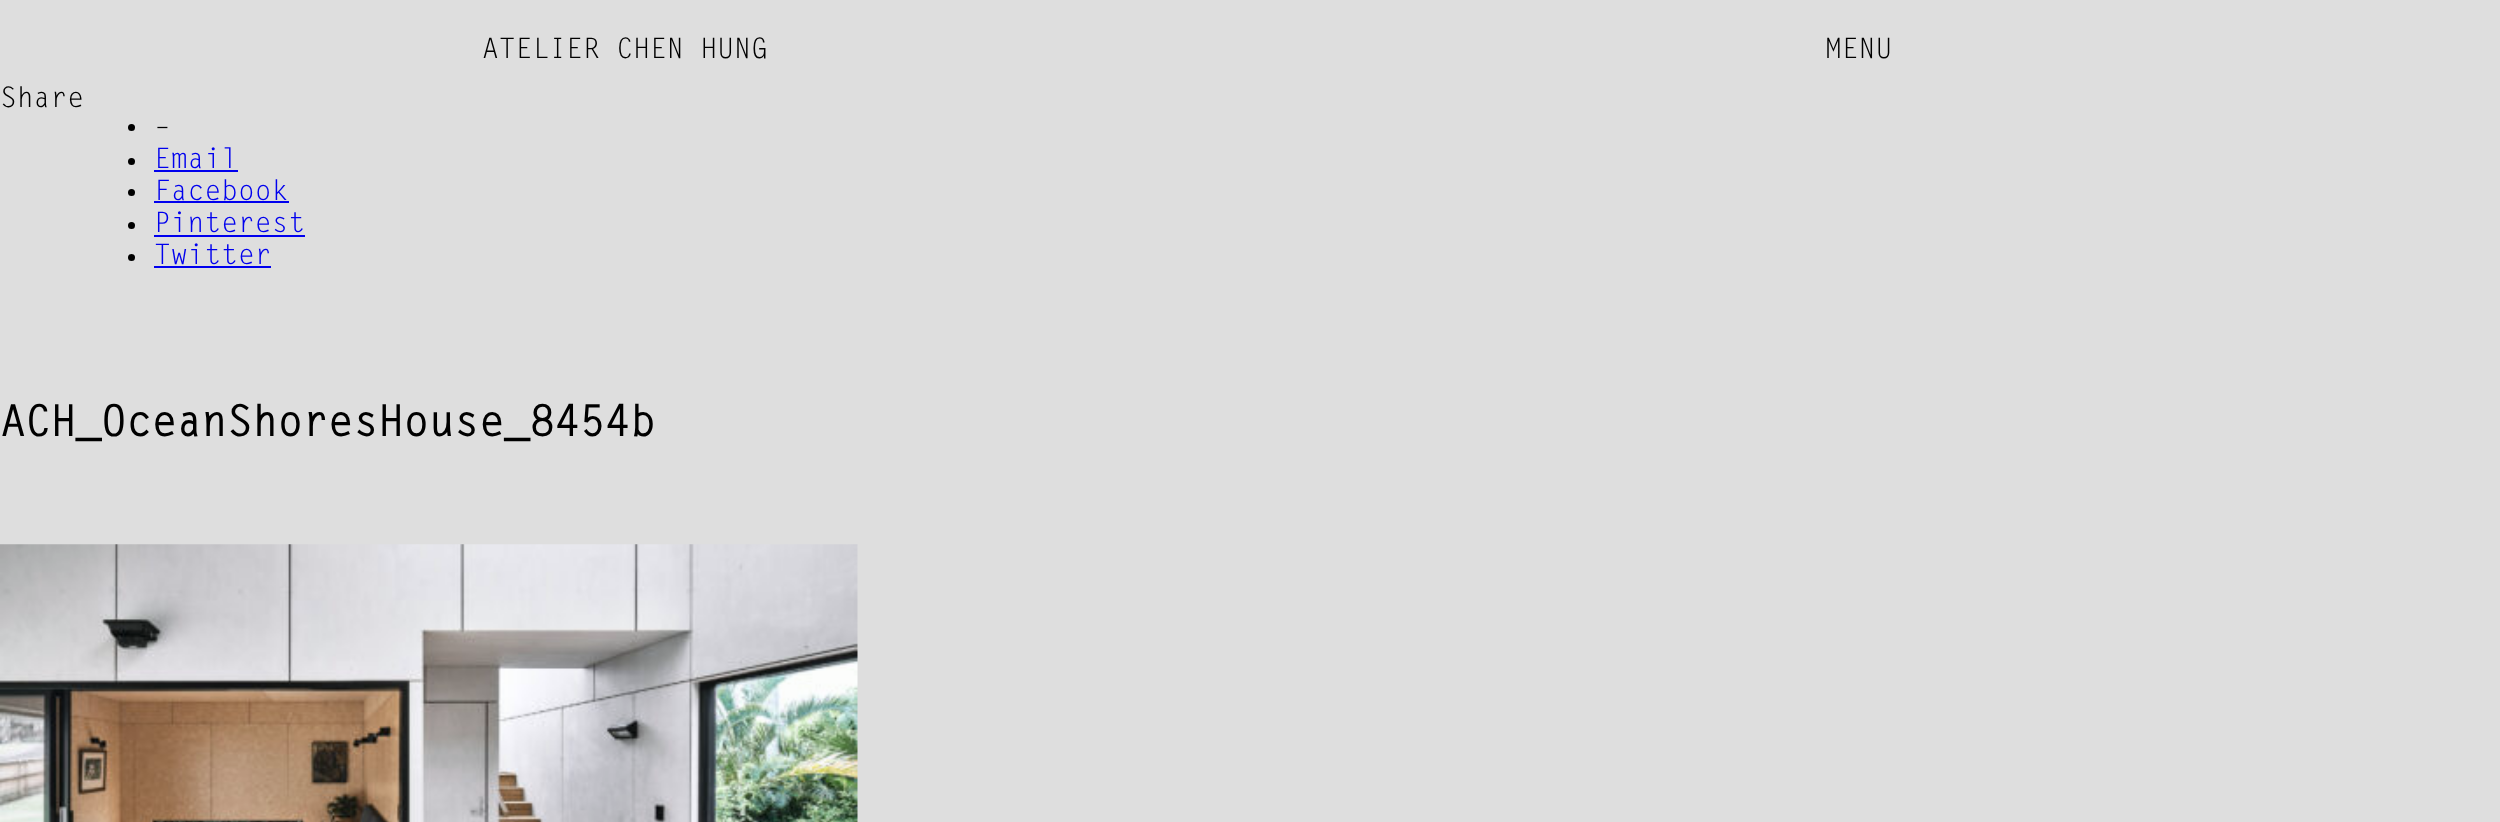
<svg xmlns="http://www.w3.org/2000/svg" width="2500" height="822">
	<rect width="100%" height="100%" fill="#DEDEDE" />
	<g font-family="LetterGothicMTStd" font-size="28" fill="#000000">
		<text x="482" y="58">ATELIER CHEN HUNG</text>
		<text x="1825" y="58">MENU</text>
		<text x="0" y="107">Share</text>
	</g>
	<circle cx="131.5" cy="127.5" r="3.5" fill="#000000" />
	<text x="154" y="135" font-family="LetterGothicMTStd" font-size="28" fill="#000000">–</text>
	<circle cx="131.5" cy="161.5" r="3.5" fill="#000000" />
	<text x="154" y="168" font-family="LetterGothicMTStd" font-size="28" fill="#0000EE">Email</text>
	<rect x="154" y="170" width="84" height="2" fill="#0000EE" />
	<circle cx="131.5" cy="192.5" r="3.5" fill="#000000" />
	<text x="154" y="200" font-family="LetterGothicMTStd" font-size="28" fill="#0000EE">Facebook</text>
	<rect x="154" y="201" width="135" height="2" fill="#0000EE" />
	<circle cx="131.5" cy="225.5" r="3.5" fill="#000000" />
	<text x="154" y="232" font-family="LetterGothicMTStd" font-size="28" fill="#0000EE">Pinterest</text>
	<rect x="154" y="235" width="151" height="2" fill="#0000EE" />
	<circle cx="131.5" cy="257.5" r="3.5" fill="#000000" />
	<text x="154" y="264" font-family="LetterGothicMTStd" font-size="28" fill="#0000EE">Twitter</text>
	<rect x="154" y="266" width="117" height="2" fill="#0000EE" />
	<text x="0" y="436" font-family="LetterGothicMTStd" font-size="42" font-weight="700" fill="#000000">ACH_OceanShoresHouse_8454b</text>
	<image x="0" y="544" width="858" height="278" href="assets/img1.png" />
</svg>
